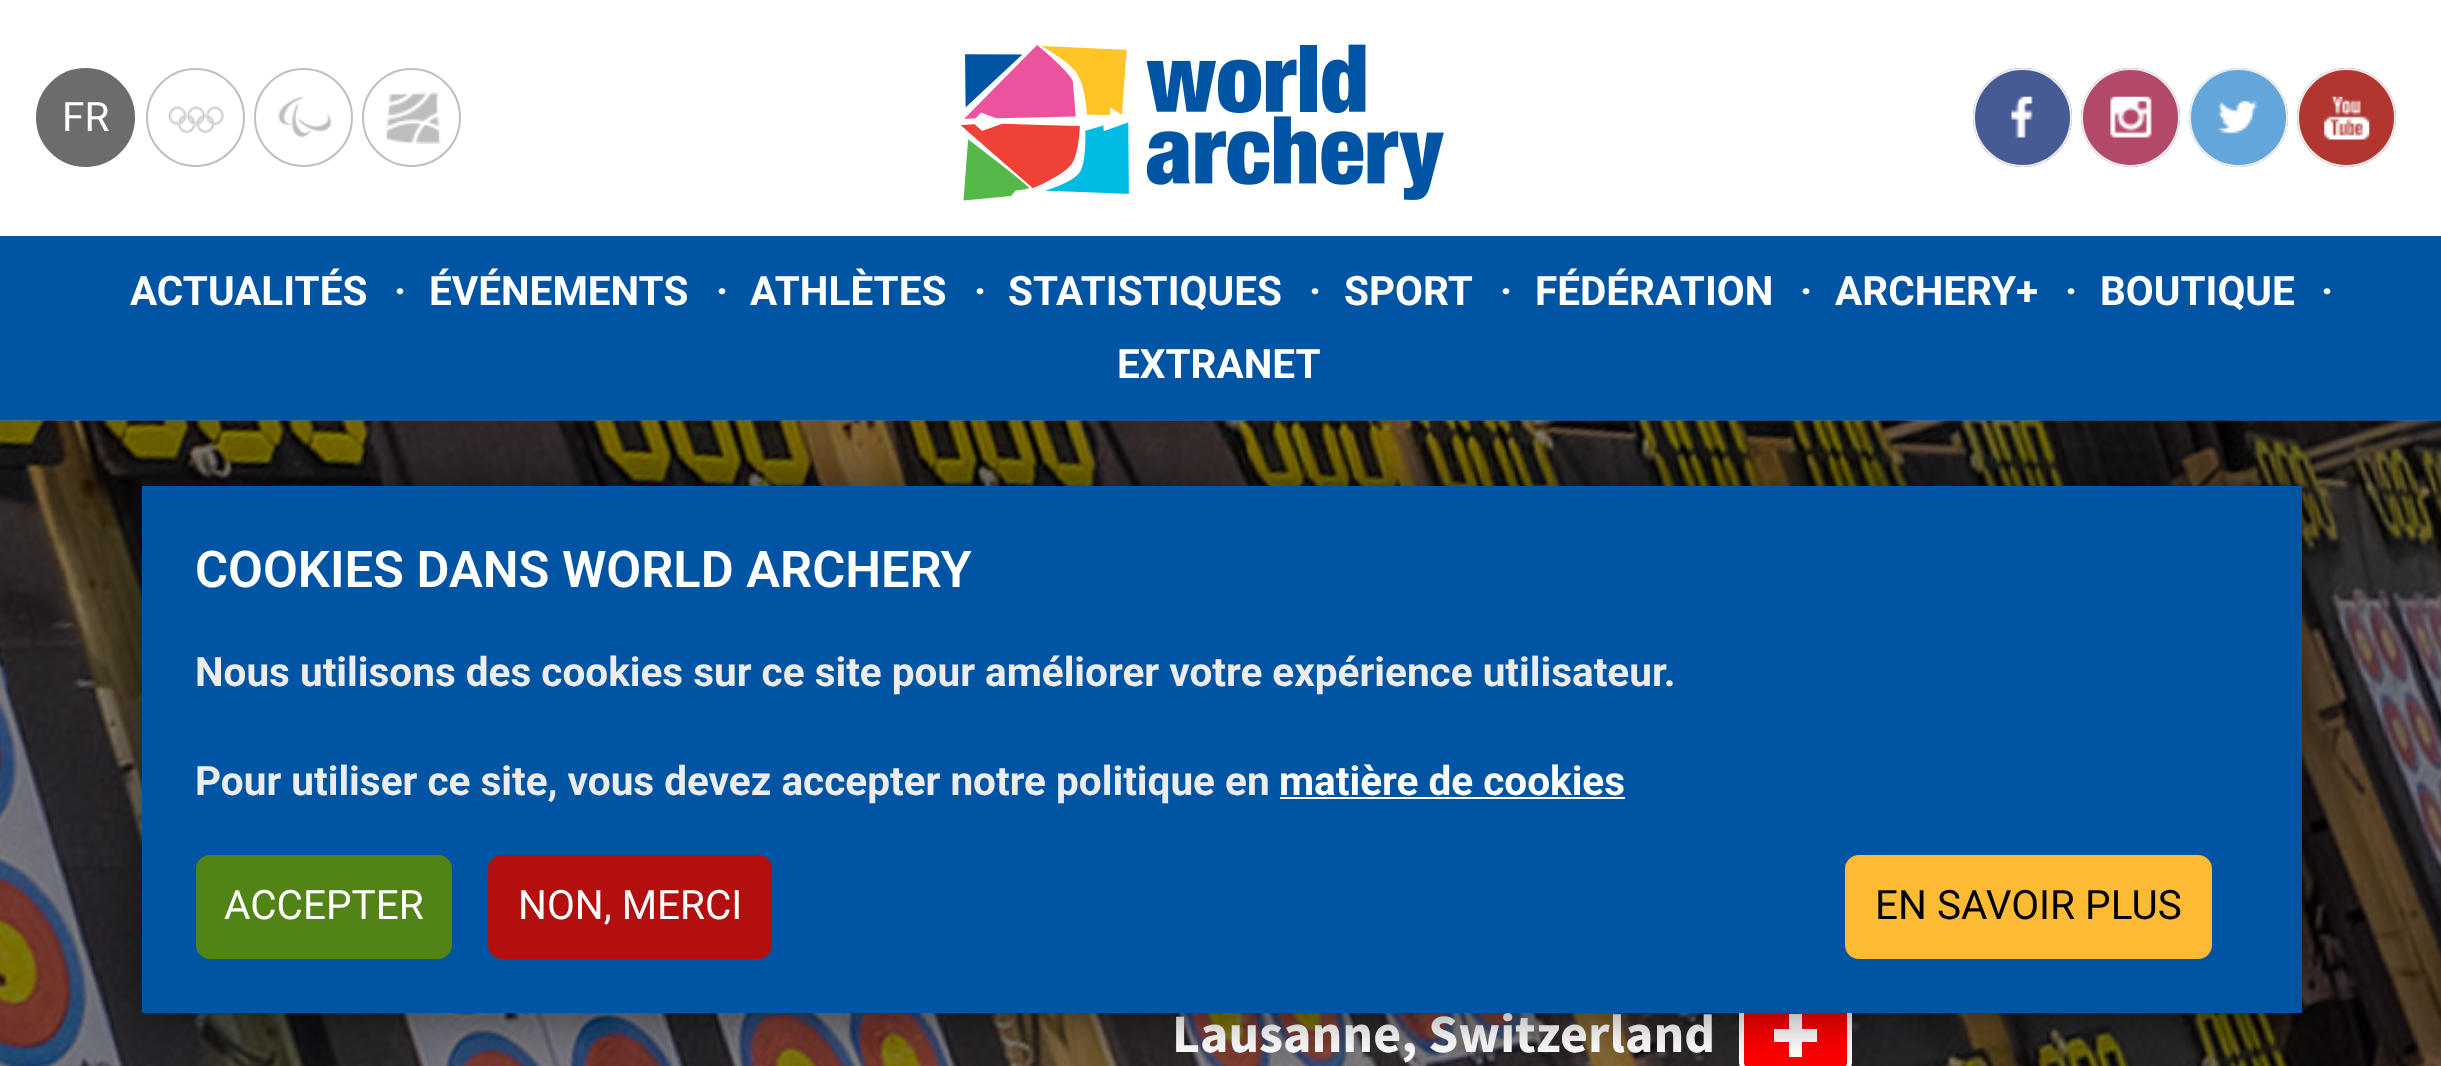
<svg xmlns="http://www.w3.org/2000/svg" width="2441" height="1066">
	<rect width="100%" height="100%" fill="#FFFFFF" />
	<circle cx="85.5" cy="117.5" r="48.5" fill="#6C6C6C" stroke="#6C6C6C" stroke-width="2" />
	<text x="62" y="131" font-family="Roboto" font-size="40.5" fill="#FFFFFF">FR</text>
	<image x="168" y="104" width="57" height="29" href="assets/img1.png" />
	<circle cx="195.5" cy="117.5" r="48.5" fill="none" stroke="#BFBFBF" stroke-width="2" />
	<image x="278" y="96" width="54" height="42" href="assets/img2.png" />
	<circle cx="303.5" cy="117.5" r="48.5" fill="none" stroke="#BFBFBF" stroke-width="2" />
	<image x="385" y="92" width="56" height="52" href="assets/img3.png" />
	<circle cx="411.5" cy="117.5" r="48.5" fill="none" stroke="#BFBFBF" stroke-width="2" />
	<image x="960" y="44" width="484" height="157" href="assets/img4.png" />
	<circle cx="2022.5" cy="117.5" r="49.5" fill="#465A94" />
	<image x="2011" y="96" width="22" height="42" href="assets/img5.png" />
	<circle cx="2022.5" cy="117.5" r="48.5" fill="none" stroke="#ECECEC" stroke-width="2" />
	<circle cx="2130.5" cy="117.5" r="49.5" fill="#B24969" />
	<image x="2110" y="96" width="42" height="42" href="assets/img6.png" />
	<circle cx="2130.5" cy="117.5" r="48.5" fill="none" stroke="#ECECEC" stroke-width="2" />
	<circle cx="2238.5" cy="117.5" r="49.5" fill="#63A6DC" />
	<image x="2218" y="100" width="40" height="34" href="assets/img7.png" />
	<circle cx="2238.5" cy="117.5" r="48.5" fill="none" stroke="#ECECEC" stroke-width="2" />
	<circle cx="2346.5" cy="117.5" r="49.5" fill="#B13630" />
	<image x="2324" y="96" width="46" height="44" href="assets/img8.png" />
	<circle cx="2346.5" cy="117.5" r="48.5" fill="none" stroke="#ECECEC" stroke-width="2" />
	<rect x="0" y="236" width="2441" height="185" fill="#0054A4" />
	<g font-family="Roboto" font-size="40.5" font-weight="700" fill="#FFFFFF">
		<text x="130" y="305">ACTUALITÉS</text>
		<text x="394" y="305">·</text>
		<text x="429" y="305">ÉVÉNEMENTS</text>
		<text x="716" y="305">·</text>
		<text x="750" y="305">ATHLÈTES</text>
		<text x="974" y="305">·</text>
		<text x="1008" y="305">STATISTIQUES</text>
		<text x="1309" y="305">·</text>
		<text x="1344" y="305">SPORT</text>
		<text x="1500" y="305">·</text>
		<text x="1535" y="305">FÉDÉRATION</text>
		<text x="1800" y="305">·</text>
		<text x="1835" y="305">ARCHERY+</text>
		<text x="2065" y="305">·</text>
		<text x="2100" y="305">BOUTIQUE</text>
		<text x="2321" y="305">·</text>
		<text x="1117" y="378">EXTRANET</text>
	</g>
	<image x="0" y="420" width="2441" height="646" href="assets/img9.png" />
	<text x="1172" y="1052" font-family="Source Sans Pro" font-size="54" font-weight="700" fill="#FFFFFF">Lausanne, Switzerland</text>
	<rect x="1741.5" y="999.5" width="108" height="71" rx="8.5" fill="none" stroke="#FFFFFF" stroke-width="5" />
	<rect x="1744" y="1001" width="103" height="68" rx="7" fill="#FF0000" />
	<rect x="1774" y="1029" width="43" height="13" fill="#FFFFFF" />
	<rect x="1789" y="1014" width="13" height="43" fill="#FFFFFF" />
	<rect x="2203" y="893" width="58" height="59" rx="29" fill="#000000" fill-opacity="0.75" filter="blur(38px)" />
	<rect x="142" y="486" width="2160" height="527" fill="#000000" fill-opacity="0.5" filter="blur(27px)" />
	<rect x="142" y="486" width="2160" height="527" fill="#0054A4" />
	<text x="195" y="587" font-family="Roboto" font-size="50.6" font-weight="600" fill="#FFFFFF">COOKIES DANS WORLD ARCHERY</text>
	<g font-family="Roboto" font-size="40.5" font-weight="700" fill="#ECECEC">
		<text x="195" y="686">Nous utilisons des cookies sur ce site pour améliorer votre expérience utilisateur.</text>
		<text x="195" y="795">Pour utiliser ce site, vous devez accepter notre politique en</text>
	</g>
	<text x="1279" y="795" font-family="Roboto" font-size="40.5" font-weight="700" fill="#FFFFFF">matière de cookies</text>
	<rect x="1280" y="797" width="345" height="2" fill="#FFFFFF" />
	<rect x="197" y="856" width="254" height="102" rx="13" fill="#528316" stroke="#528316" stroke-width="2" />
	<text x="224" y="919" font-family="Roboto" font-size="40.5" fill="#FFFFFF">ACCEPTER</text>
	<rect x="489" y="856" width="282" height="102" rx="13" fill="#B30F0F" stroke="#B30F0F" stroke-width="2" />
	<text x="518" y="919" font-family="Roboto" font-size="40.5" fill="#FFFFFF">NON, MERCI</text>
	<rect x="1846" y="856" width="365" height="102" rx="13" fill="#FCBA35" stroke="#FCBA35" stroke-width="2" />
	<text x="1875" y="919" font-family="Roboto" font-size="40.5" fill="#000000">EN SAVOIR PLUS</text>
</svg>
